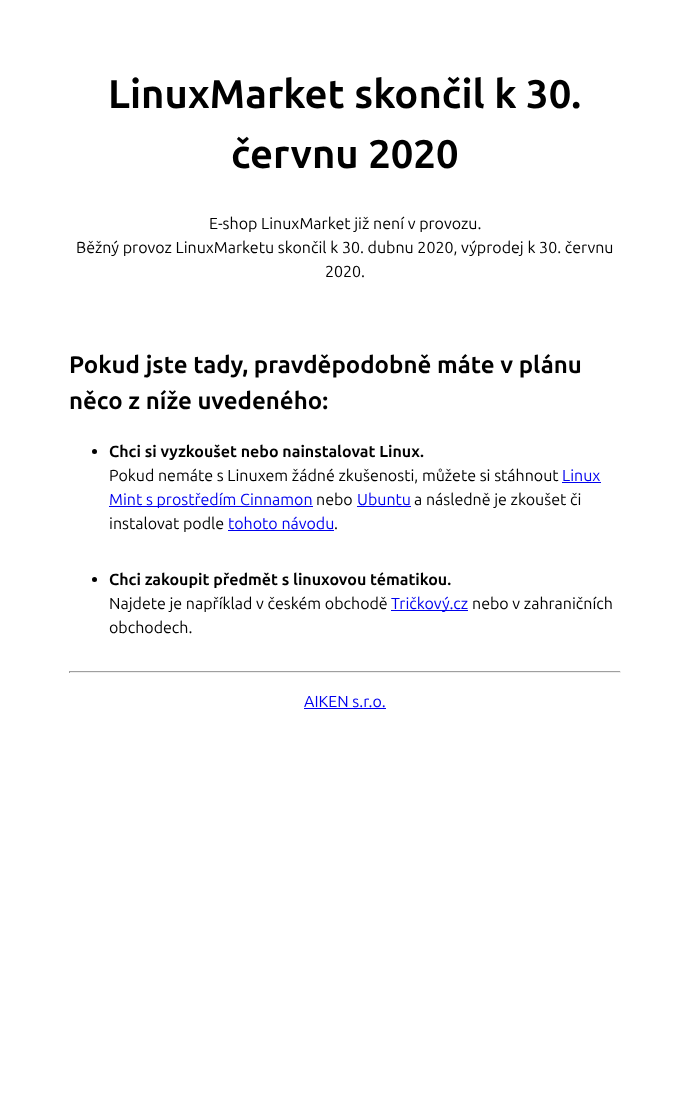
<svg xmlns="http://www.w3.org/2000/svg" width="690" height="1117">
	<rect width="100%" height="100%" fill="#FFFFFF" />
	<g font-family="Ubuntu" font-size="40" font-weight="700" fill="#000000">
		<text x="108" y="108">LinuxMarket skončil k 30.</text>
		<text x="231" y="168">červnu 2020</text>
	</g>
	<g font-family="Ubuntu" font-size="16" fill="#000000">
		<text x="209" y="229">E-shop LinuxMarket již není v provozu.</text>
		<text x="76" y="253">Běžný provoz LinuxMarketu skončil k 30. dubnu 2020, výprodej k 30. červnu</text>
		<text x="325" y="277">2020.</text>
	</g>
	<g font-family="Ubuntu" font-size="24" font-weight="700" fill="#000000">
		<text x="69" y="373">Pokud jste tady, pravděpodobně máte v plánu</text>
		<text x="69" y="409">něco z níže uvedeného:</text>
	</g>
	<circle cx="94.5" cy="451.5" r="2.5" fill="#000000" />
	<text x="109" y="457" font-family="Ubuntu" font-size="16" font-weight="700" fill="#000000">Chci si vyzkoušet nebo nainstalovat Linux.</text>
	<text x="109" y="481" font-family="Ubuntu" font-size="16" fill="#000000">Pokud nemáte s Linuxem žádné zkušenosti, můžete si stáhnout</text>
	<text x="562" y="481" font-family="Ubuntu" font-size="16" fill="#0000EE">Linux</text>
	<rect x="562" y="482" width="39" height="1" fill="#0000EE" />
	<rect x="109" y="506" width="204" height="1" fill="#0000EE" />
	<text x="109" y="505" font-family="Ubuntu" font-size="16" fill="#0000EE">Mint s prostředím Cinnamon</text>
	<text x="316" y="505" font-family="Ubuntu" font-size="16" fill="#000000">nebo</text>
	<text x="357" y="505" font-family="Ubuntu" font-size="16" fill="#0000EE">Ubuntu</text>
	<rect x="357" y="506" width="54" height="1" fill="#0000EE" />
	<g font-family="Ubuntu" font-size="16" fill="#000000">
		<text x="414" y="505">a následně je zkoušet či</text>
		<text x="109" y="529">instalovat podle</text>
	</g>
	<text x="228" y="529" font-family="Ubuntu" font-size="16" fill="#0000EE">tohoto návodu</text>
	<rect x="228" y="530" width="106" height="1" fill="#0000EE" />
	<text x="334" y="529" font-family="Ubuntu" font-size="16" fill="#000000">.</text>
	<circle cx="94.5" cy="579.5" r="2.5" fill="#000000" />
	<text x="109" y="585" font-family="Ubuntu" font-size="16" font-weight="700" fill="#000000">Chci zakoupit předmět s linuxovou tématikou.</text>
	<text x="109" y="609" font-family="Ubuntu" font-size="16" fill="#000000">Najdete je například v českém obchodě</text>
	<rect x="391" y="610" width="77" height="1" fill="#0000EE" />
	<text x="391" y="609" font-family="Ubuntu" font-size="16" fill="#0000EE">Tričkový.cz</text>
	<g font-family="Ubuntu" font-size="16" fill="#000000">
		<text x="472" y="609">nebo v zahraničních</text>
		<text x="109" y="633">obchodech.</text>
	</g>
	<rect x="69" y="671" width="552" height="1" fill="#9F9F9F" />
	<rect x="620" y="671" width="1" height="2" fill="#EEEEEE" />
	<rect x="69" y="672" width="552" height="1" fill="#EEEEEE" />
	<rect x="69" y="671" width="1" height="2" fill="#9F9F9F" />
	<text x="304" y="707" font-family="Ubuntu" font-size="16" fill="#0000EE">AIKEN s.r.o.</text>
	<rect x="304" y="708" width="82" height="1" fill="#0000EE" />
</svg>
